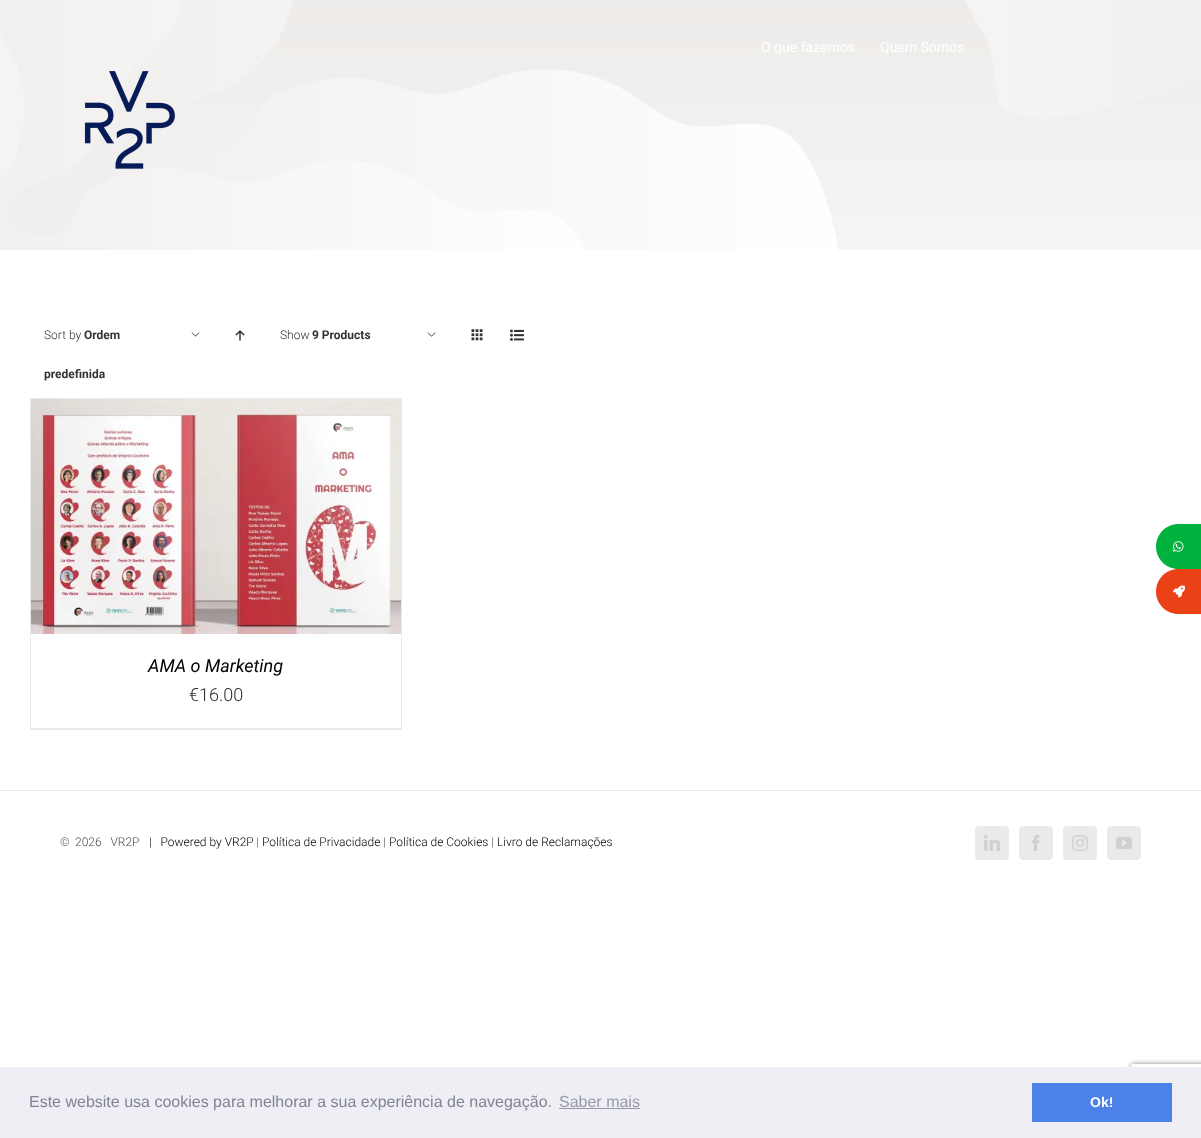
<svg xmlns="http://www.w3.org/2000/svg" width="1201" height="1138">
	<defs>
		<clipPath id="clip1"><path d="M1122 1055H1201V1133H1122ZM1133 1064H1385C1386 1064 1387 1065 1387 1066V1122C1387 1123 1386 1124 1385 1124H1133C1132 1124 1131 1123 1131 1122V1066C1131 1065 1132 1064 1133 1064Z" clip-rule="evenodd" /></clipPath>
	</defs>
	<rect width="100%" height="100%" fill="#FFFFFF" />
	<image x="0" y="0" width="1201" height="250" href="assets/img1.png" />
	<g font-family="Roboto" font-size="14" fill="#FFFFFF">
		<text x="761" y="52">O que fazemos</text>
		<text x="880" y="52">Quem Somos</text>
	</g>
	<image x="84" y="71" width="91" height="98" href="assets/img2.png" />
	<text x="44" y="339" font-family="Roboto" font-size="12" font-weight="300" fill="#333333">Sort by</text>
	<g font-family="Roboto" font-size="12" font-weight="700" fill="#333333">
		<text x="84" y="339">Ordem</text>
		<text x="44" y="378">predefinida</text>
	</g>
	<image x="191" y="332" width="9" height="5" href="assets/img3.png" />
	<image x="235" y="330" width="10" height="11" href="assets/img4.png" />
	<text x="280" y="339" font-family="Roboto" font-size="12" font-weight="300" fill="#333333">Show</text>
	<text x="312" y="339" font-family="Roboto" font-size="12" font-weight="700" fill="#333333">9 Products</text>
	<image x="427" y="332" width="9" height="5" href="assets/img3.png" />
	<image x="471" y="329" width="12" height="12" href="assets/img5.png" />
	<image x="510" y="329" width="14" height="12" href="assets/img6.png" />
	<rect x="30" y="398" width="372" height="1" fill="#EBEAEA" />
	<rect x="401" y="398" width="1" height="332" fill="#EBEAEA" />
	<rect x="30" y="728" width="372" height="2" fill="#EBEAEA" />
	<rect x="30" y="398" width="1" height="332" fill="#EBEAEA" />
	<image x="31" y="399" width="370" height="235" href="assets/img7.png" />
	<text x="148" y="672" font-family="Roboto" font-size="18" font-style="italic" fill="#000000">AMA o Marketing</text>
	<text x="189" y="701" font-family="Roboto" font-size="18" font-weight="300" fill="#2D2D2D">€16.00</text>
	<rect x="0" y="790" width="1201" height="1" fill="#EAEAEA" />
	<g font-family="Roboto" font-size="12" font-weight="300" fill="#4C4C4C">
		<text x="60" y="846">©</text>
		<text x="75" y="846" xml:space="preserve">2026   VR2P</text>
	</g>
	<text x="149" y="846" font-family="Roboto" font-size="12" font-weight="300" fill="#000000" xml:space="preserve">|   Powered by VR2P</text>
	<text x="256" y="846" font-family="Roboto" font-size="12" font-weight="300" fill="#4C4C4C">|</text>
	<text x="262" y="846" font-family="Roboto" font-size="12" font-weight="300" fill="#000000">Política de Privacidade</text>
	<text x="383" y="846" font-family="Roboto" font-size="12" font-weight="300" fill="#4C4C4C">|</text>
	<text x="389" y="846" font-family="Roboto" font-size="12" font-weight="300" fill="#000000">Política de Cookies</text>
	<text x="491" y="846" font-family="Roboto" font-size="12" font-weight="300" fill="#4C4C4C">|</text>
	<text x="497" y="846" font-family="Roboto" font-size="12" font-weight="300" fill="#000000">Livro de Reclamações</text>
	<rect x="975.5" y="826.5" width="33" height="33" rx="3.5" fill="#EAEAEA" stroke="#EAEAEA" />
	<image x="984" y="835" width="16" height="16" href="assets/img8.png" />
	<rect x="1019.5" y="826.5" width="33" height="33" rx="3.5" fill="#EAEAEA" stroke="#EAEAEA" />
	<image x="1032" y="835" width="8" height="16" href="assets/img9.png" />
	<rect x="1063.5" y="826.5" width="33" height="33" rx="3.5" fill="#EAEAEA" stroke="#EAEAEA" />
	<image x="1072" y="835" width="16" height="16" href="assets/img10.png" />
	<rect x="1107.5" y="826.5" width="33" height="33" rx="3.5" fill="#EAEAEA" stroke="#EAEAEA" />
	<image x="1116" y="837" width="16" height="12" href="assets/img11.png" />
	<path d="M1178.5 524H1201V569H1178.5C1166 569 1156 559 1156 546.5C1156 534 1166 524 1178.5 524Z" fill="#01B23F" />
	<image x="1173" y="541" width="11" height="11" href="assets/img12.png" />
	<path d="M1178.5 569H1201V614H1178.5C1166 614 1156 604 1156 591.5C1156 579 1166 569 1178.5 569Z" fill="#EA4117" />
	<image x="1173" y="585" width="12" height="13" href="assets/img13.png" />
	<g clip-path="url(#clip1)">
		<rect x="1131" y="1064" width="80" height="60" rx="2" fill="#808080" filter="blur(2.5px)" />
	</g>
	<rect x="0" y="1067" width="1201" height="71" fill="#EDEFF5" />
	<text x="29" y="1107" font-family="Liberation Sans" font-size="16" fill="#838391">Este website usa cookies para melhorar a sua experiência de navegação.</text>
	<text x="559" y="1107" font-family="Liberation Sans" font-size="16" fill="#9899A5">Saber mais</text>
	<rect x="559" y="1108" width="81" height="1" fill="#9899A5" />
	<rect x="1032" y="1083" width="140" height="39" fill="#4B81E8" />
	<text x="1090" y="1107" font-family="Liberation Sans" font-size="14" font-weight="700" fill="#FFFFFF">Ok!</text>
</svg>
